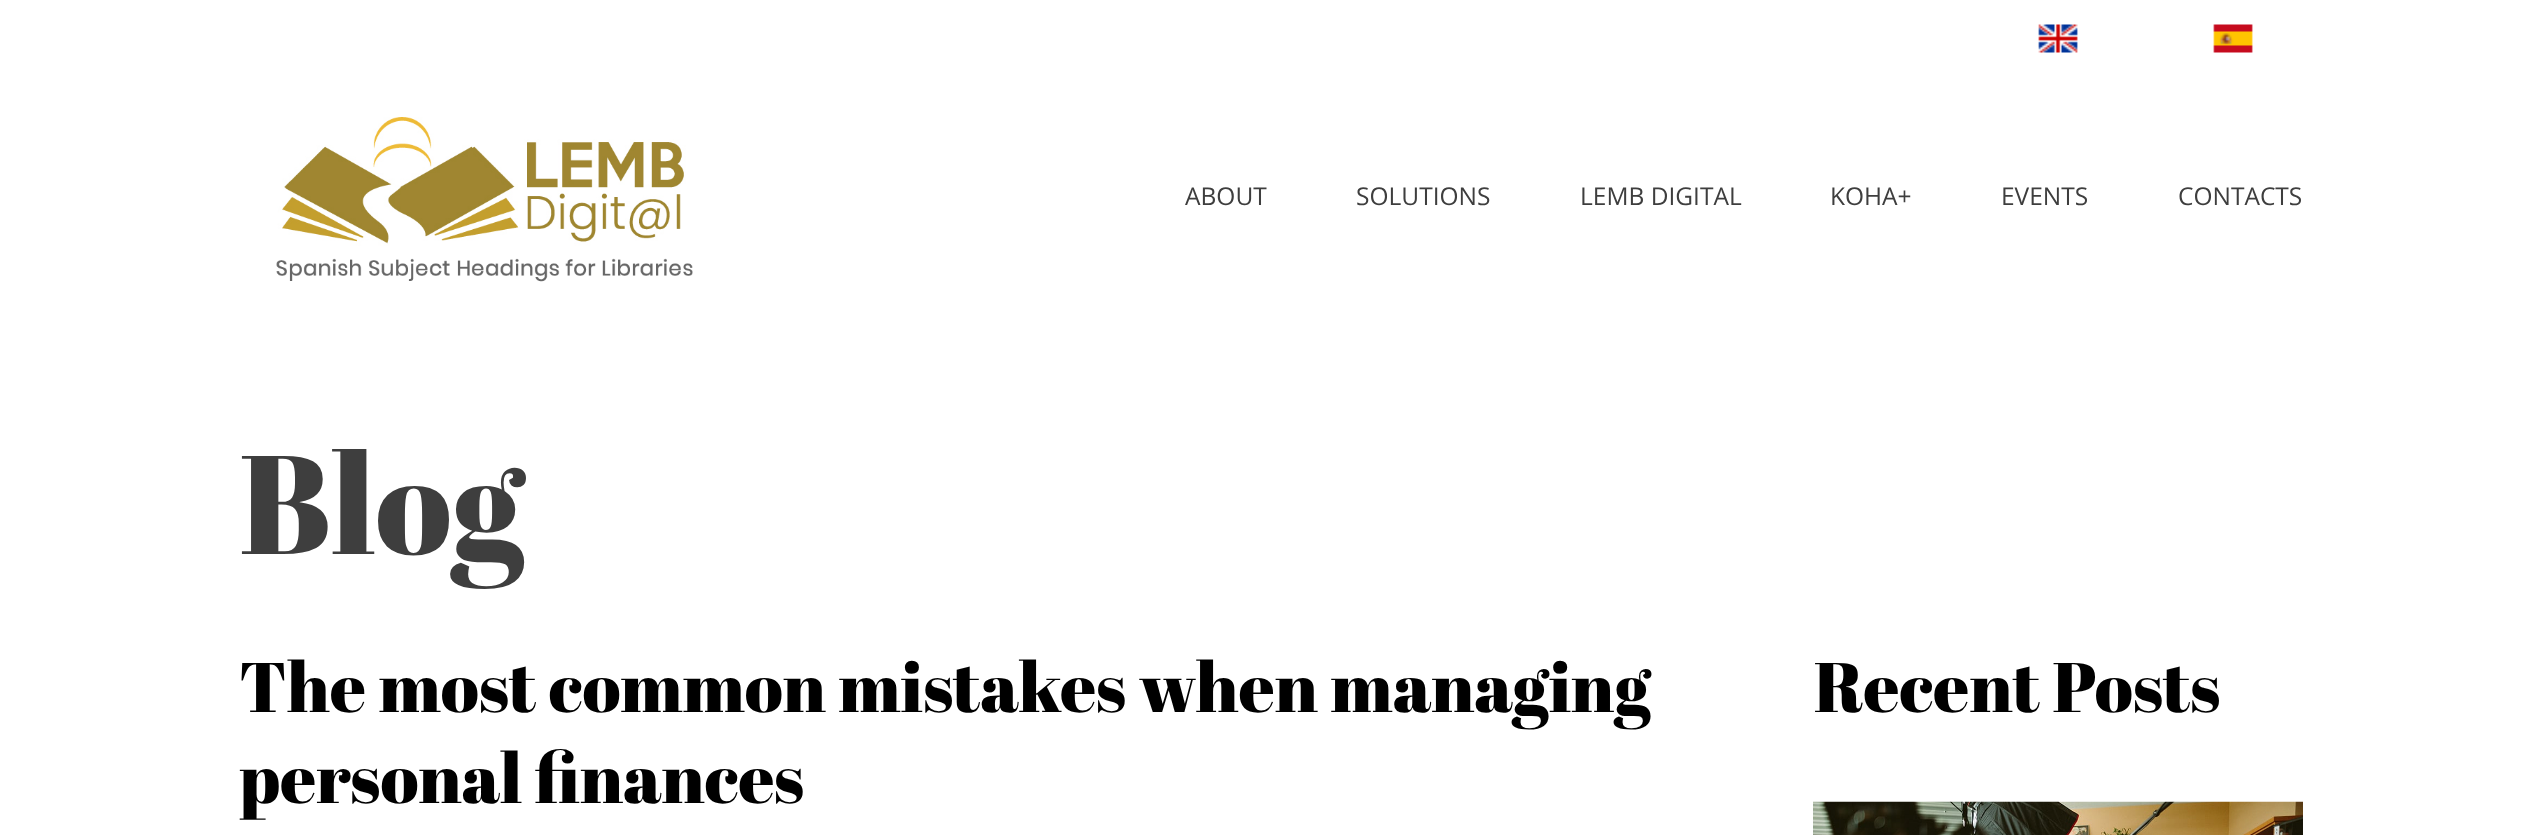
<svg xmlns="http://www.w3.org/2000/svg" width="2538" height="835">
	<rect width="100%" height="100%" fill="#FFFFFF" />
	<image x="2038" y="24" width="40" height="29" href="assets/img1.png" />
	<image x="2213" y="24" width="40" height="29" href="assets/img2.png" />
	<image x="276" y="117" width="417" height="165" href="assets/img3.png" />
	<g font-family="Open Sans" font-size="24.5" fill="#3E3E3E">
		<text x="1185" y="205">ABOUT</text>
		<text x="1356" y="205">SOLUTIONS</text>
		<text x="1580" y="205">LEMB DIGITAL</text>
		<text x="1830" y="205">KOHA+</text>
		<text x="2001" y="205">EVENTS</text>
		<text x="2178" y="205">CONTACTS</text>
	</g>
	<text x="239" y="554" font-family="Abril Fatface" font-size="140" fill="#3E3E3E">Blog</text>
	<g font-family="Abril Fatface" font-size="70" fill="#000000">
		<text x="239" y="712">The most common mistakes when managing</text>
		<text x="239" y="803">personal finances</text>
		<text x="1814" y="712">Recent Posts</text>
	</g>
	<image x="1813" y="801" width="490" height="34" href="assets/img4.png" />
</svg>
